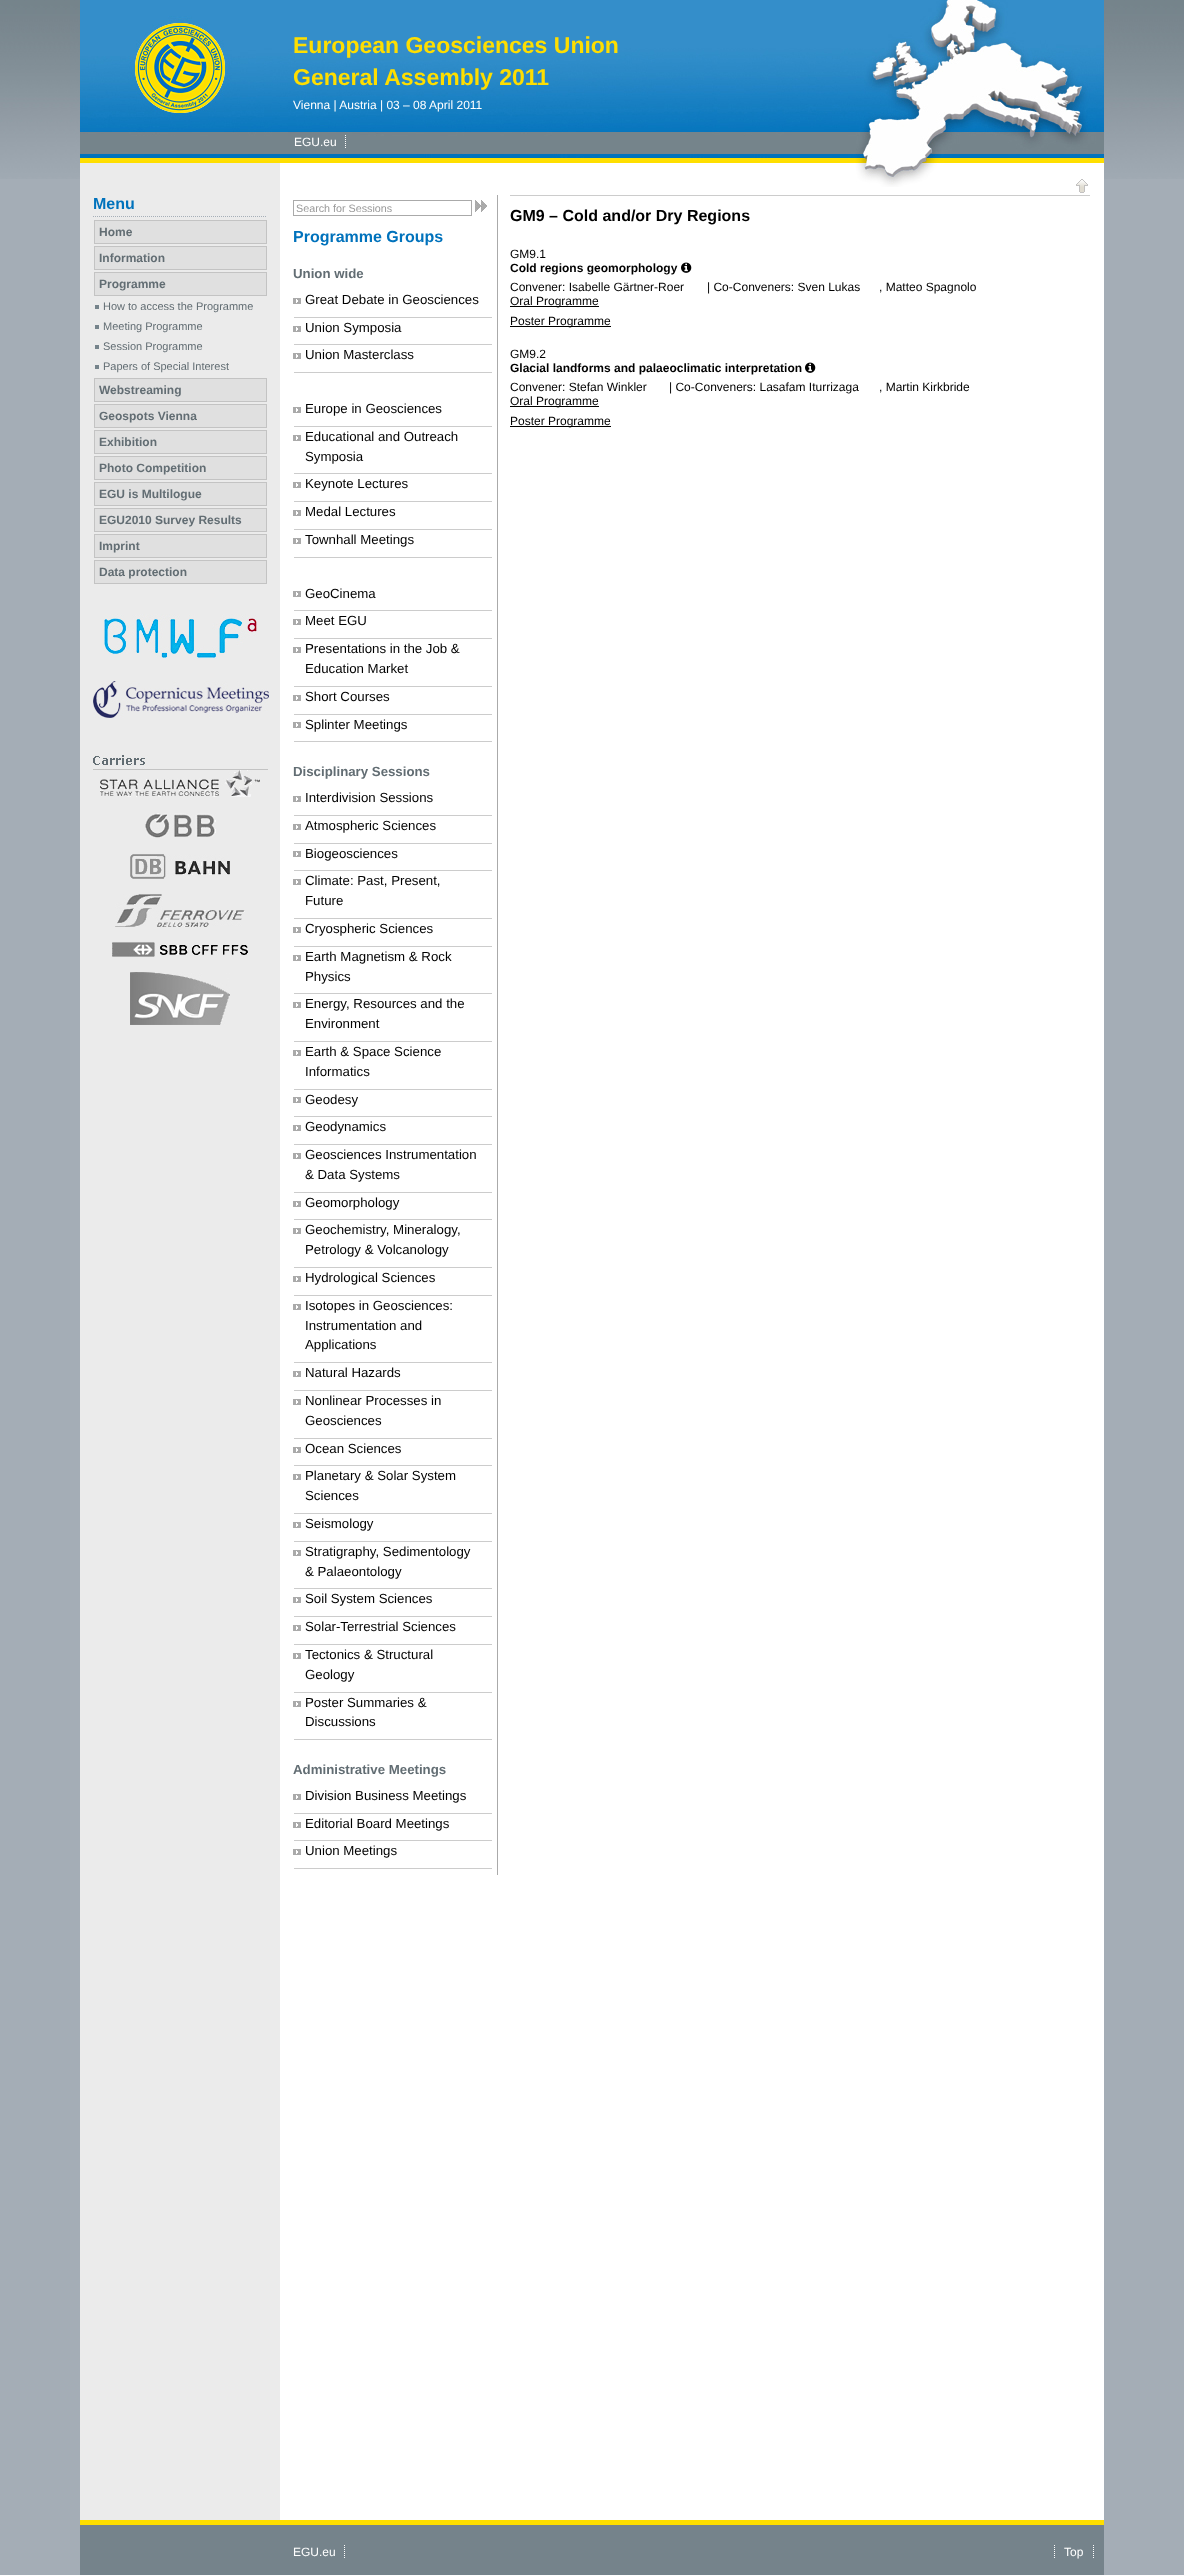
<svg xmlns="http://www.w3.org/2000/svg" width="1184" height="2575">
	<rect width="100%" height="100%" fill="#A4ADB6" />
	<image x="0" y="0" width="1184" height="179" href="assets/img1.png" />
	<rect x="280" y="187" width="824" height="2333" fill="#FFFFFF" />
	<rect x="80" y="187" width="200" height="2333" fill="#EBEBEB" />
	<image x="80" y="0" width="1024" height="187" href="assets/img2.png" />
	<g font-family="Liberation Sans" font-size="23" font-weight="700" fill="#FEDE00">
		<text x="293" y="53">European Geosciences Union</text>
		<text x="293" y="85">General Assembly 2011</text>
	</g>
	<g font-family="Liberation Sans" font-size="12" fill="#FFFFFF">
		<text x="293" y="109">Vienna | Austria | 03 – 08 April 2011</text>
		<text x="294" y="146">EGU.eu</text>
	</g>
	<path d="M345.5 135V149" fill="none" stroke="#FFFFFF" stroke-dasharray="1 1" />
	<path d="M93 216.5H267" fill="none" stroke="#A6AFB8" stroke-dasharray="1 1" />
	<text x="93" y="209" font-family="Liberation Sans" font-size="16" font-weight="700" fill="#0072BC">Menu</text>
	<rect x="94.5" y="220.5" width="172" height="23" fill="#E0E0E0" stroke="#C3C3C3" />
	<text x="99" y="236" font-family="Liberation Sans" font-size="12" font-weight="700" fill="#626D73">Home</text>
	<rect x="94.5" y="246.5" width="172" height="23" fill="#E0E0E0" stroke="#C3C3C3" />
	<text x="99" y="262" font-family="Liberation Sans" font-size="12" font-weight="700" fill="#626D73">Information</text>
	<rect x="94.5" y="272.5" width="172" height="23" fill="#E0E0E0" stroke="#C3C3C3" />
	<text x="99" y="288" font-family="Liberation Sans" font-size="12" font-weight="700" fill="#626D73">Programme</text>
	<rect x="95" y="305" width="4" height="4" fill="#75838B" />
	<text x="103" y="310" font-family="Liberation Sans" font-size="11" fill="#626D73">How to access the Programme</text>
	<rect x="95" y="325" width="4" height="4" fill="#75838B" />
	<text x="103" y="330" font-family="Liberation Sans" font-size="11" fill="#626D73">Meeting Programme</text>
	<rect x="95" y="345" width="4" height="4" fill="#75838B" />
	<text x="103" y="350" font-family="Liberation Sans" font-size="11" fill="#626D73">Session Programme</text>
	<rect x="95" y="365" width="4" height="4" fill="#75838B" />
	<text x="103" y="370" font-family="Liberation Sans" font-size="11" fill="#626D73">Papers of Special Interest</text>
	<rect x="94.5" y="378.5" width="172" height="23" fill="#E0E0E0" stroke="#C3C3C3" />
	<text x="99" y="394" font-family="Liberation Sans" font-size="12" font-weight="700" fill="#626D73">Webstreaming</text>
	<rect x="94.5" y="404.5" width="172" height="23" fill="#E0E0E0" stroke="#C3C3C3" />
	<text x="99" y="420" font-family="Liberation Sans" font-size="12" font-weight="700" fill="#626D73">Geospots Vienna</text>
	<rect x="94.5" y="430.5" width="172" height="23" fill="#E0E0E0" stroke="#C3C3C3" />
	<text x="99" y="446" font-family="Liberation Sans" font-size="12" font-weight="700" fill="#626D73">Exhibition</text>
	<rect x="94.5" y="456.5" width="172" height="23" fill="#E0E0E0" stroke="#C3C3C3" />
	<text x="99" y="472" font-family="Liberation Sans" font-size="12" font-weight="700" fill="#626D73">Photo Competition</text>
	<rect x="94.5" y="482.5" width="172" height="23" fill="#E0E0E0" stroke="#C3C3C3" />
	<text x="99" y="498" font-family="Liberation Sans" font-size="12" font-weight="700" fill="#626D73">EGU is Multilogue</text>
	<rect x="94.5" y="508.5" width="172" height="23" fill="#E0E0E0" stroke="#C3C3C3" />
	<text x="99" y="524" font-family="Liberation Sans" font-size="12" font-weight="700" fill="#626D73">EGU2010 Survey Results</text>
	<rect x="94.5" y="534.5" width="172" height="23" fill="#E0E0E0" stroke="#C3C3C3" />
	<text x="99" y="550" font-family="Liberation Sans" font-size="12" font-weight="700" fill="#626D73">Imprint</text>
	<rect x="94.5" y="560.5" width="172" height="23" fill="#E0E0E0" stroke="#C3C3C3" />
	<text x="99" y="576" font-family="Liberation Sans" font-size="12" font-weight="700" fill="#626D73">Data protection</text>
	<image x="104" y="614" width="153" height="44" href="assets/img3.png" />
	<image x="93" y="681" width="176" height="37" href="assets/img4.png" />
	<image x="93" y="755" width="175" height="15" href="assets/img5.png" />
	<image x="100" y="770" width="160" height="27" href="assets/img6.png" />
	<image x="145" y="813" width="71" height="25" href="assets/img7.png" />
	<image x="130" y="854" width="100" height="25" href="assets/img8.png" />
	<image x="115" y="894" width="130" height="33" href="assets/img9.png" />
	<image x="112" y="942" width="136" height="15" href="assets/img10.png" />
	<image x="130" y="972" width="100" height="53" href="assets/img11.png" />
	<rect x="293.5" y="200.5" width="178" height="15" fill="none" stroke="#AAAAAA" />
	<text x="296" y="212" font-family="Liberation Sans" font-size="10.75" fill="#999999">Search for Sessions</text>
	<image x="475" y="200" width="12" height="12" href="assets/img12.png" />
	<text x="293" y="242" font-family="Liberation Sans" font-size="16" font-weight="700" fill="#0072BC">Programme Groups</text>
	<text x="293" y="278" font-family="Liberation Sans" font-size="13.25" font-weight="700" fill="#626D73">Union wide</text>
	<image x="293" y="298" width="8" height="6" href="assets/img13.png" />
	<text x="305" y="304" font-family="Liberation Sans" font-size="13.25" fill="#000000">Great Debate in Geosciences</text>
	<rect x="294" y="317" width="198" height="1" fill="#CCCCCC" />
	<image x="293" y="326" width="8" height="6" href="assets/img13.png" />
	<text x="305" y="332" font-family="Liberation Sans" font-size="13.25" fill="#000000">Union Symposia</text>
	<rect x="294" y="344" width="198" height="1" fill="#CCCCCC" />
	<image x="293" y="353" width="8" height="6" href="assets/img13.png" />
	<text x="305" y="359" font-family="Liberation Sans" font-size="13.25" fill="#000000">Union Masterclass</text>
	<rect x="294" y="372" width="198" height="1" fill="#CCCCCC" />
	<image x="293" y="407" width="8" height="6" href="assets/img13.png" />
	<text x="305" y="413" font-family="Liberation Sans" font-size="13.25" fill="#000000">Europe in Geosciences</text>
	<rect x="294" y="426" width="198" height="1" fill="#CCCCCC" />
	<image x="293" y="435" width="8" height="6" href="assets/img13.png" />
	<g font-family="Liberation Sans" font-size="13.25" fill="#000000">
		<text x="305" y="441">Educational and Outreach</text>
		<text x="305" y="461">Symposia</text>
	</g>
	<rect x="294" y="473" width="198" height="1" fill="#CCCCCC" />
	<image x="293" y="482" width="8" height="6" href="assets/img13.png" />
	<text x="305" y="488" font-family="Liberation Sans" font-size="13.25" fill="#000000">Keynote Lectures</text>
	<rect x="294" y="501" width="198" height="1" fill="#CCCCCC" />
	<image x="293" y="510" width="8" height="6" href="assets/img13.png" />
	<text x="305" y="516" font-family="Liberation Sans" font-size="13.25" fill="#000000">Medal Lectures</text>
	<rect x="294" y="529" width="198" height="1" fill="#CCCCCC" />
	<image x="293" y="538" width="8" height="6" href="assets/img13.png" />
	<text x="305" y="544" font-family="Liberation Sans" font-size="13.25" fill="#000000">Townhall Meetings</text>
	<rect x="294" y="557" width="198" height="1" fill="#CCCCCC" />
	<image x="293" y="591" width="8" height="6" href="assets/img13.png" />
	<text x="305" y="598" font-family="Liberation Sans" font-size="13.25" fill="#000000">GeoCinema</text>
	<rect x="294" y="610" width="198" height="1" fill="#CCCCCC" />
	<image x="293" y="619" width="8" height="6" href="assets/img13.png" />
	<text x="305" y="625" font-family="Liberation Sans" font-size="13.25" fill="#000000">Meet EGU</text>
	<rect x="294" y="638" width="198" height="1" fill="#CCCCCC" />
	<image x="293" y="647" width="8" height="6" href="assets/img13.png" />
	<g font-family="Liberation Sans" font-size="13.25" fill="#000000">
		<text x="305" y="653">Presentations in the Job &amp;</text>
		<text x="305" y="673">Education Market</text>
	</g>
	<rect x="294" y="686" width="198" height="1" fill="#CCCCCC" />
	<image x="293" y="695" width="8" height="6" href="assets/img13.png" />
	<text x="305" y="701" font-family="Liberation Sans" font-size="13.25" fill="#000000">Short Courses</text>
	<rect x="294" y="714" width="198" height="1" fill="#CCCCCC" />
	<image x="293" y="722" width="8" height="6" href="assets/img13.png" />
	<text x="305" y="729" font-family="Liberation Sans" font-size="13.25" fill="#000000">Splinter Meetings</text>
	<rect x="294" y="741" width="198" height="1" fill="#CCCCCC" />
	<text x="293" y="776" font-family="Liberation Sans" font-size="13.25" font-weight="700" fill="#626D73">Disciplinary Sessions</text>
	<image x="293" y="796" width="8" height="6" href="assets/img13.png" />
	<text x="305" y="802" font-family="Liberation Sans" font-size="13.25" fill="#000000">Interdivision Sessions</text>
	<rect x="294" y="815" width="198" height="1" fill="#CCCCCC" />
	<image x="293" y="824" width="8" height="6" href="assets/img13.png" />
	<text x="305" y="830" font-family="Liberation Sans" font-size="13.25" fill="#000000">Atmospheric Sciences</text>
	<rect x="294" y="843" width="198" height="1" fill="#CCCCCC" />
	<image x="293" y="851" width="8" height="6" href="assets/img13.png" />
	<text x="305" y="858" font-family="Liberation Sans" font-size="13.25" fill="#000000">Biogeosciences</text>
	<rect x="294" y="870" width="198" height="1" fill="#CCCCCC" />
	<image x="293" y="879" width="8" height="6" href="assets/img13.png" />
	<g font-family="Liberation Sans" font-size="13.25" fill="#000000">
		<text x="305" y="885">Climate: Past, Present,</text>
		<text x="305" y="905">Future</text>
	</g>
	<rect x="294" y="918" width="198" height="1" fill="#CCCCCC" />
	<image x="293" y="927" width="8" height="6" href="assets/img13.png" />
	<text x="305" y="933" font-family="Liberation Sans" font-size="13.25" fill="#000000">Cryospheric Sciences</text>
	<rect x="294" y="946" width="198" height="1" fill="#CCCCCC" />
	<image x="293" y="955" width="8" height="6" href="assets/img13.png" />
	<g font-family="Liberation Sans" font-size="13.25" fill="#000000">
		<text x="305" y="961">Earth Magnetism &amp; Rock</text>
		<text x="305" y="981">Physics</text>
	</g>
	<rect x="294" y="993" width="198" height="1" fill="#CCCCCC" />
	<image x="293" y="1002" width="8" height="6" href="assets/img13.png" />
	<g font-family="Liberation Sans" font-size="13.25" fill="#000000">
		<text x="305" y="1008">Energy, Resources and the</text>
		<text x="305" y="1028">Environment</text>
	</g>
	<rect x="294" y="1041" width="198" height="1" fill="#CCCCCC" />
	<image x="293" y="1050" width="8" height="6" href="assets/img13.png" />
	<g font-family="Liberation Sans" font-size="13.25" fill="#000000">
		<text x="305" y="1056">Earth &amp; Space Science</text>
		<text x="305" y="1076">Informatics</text>
	</g>
	<rect x="294" y="1089" width="198" height="1" fill="#CCCCCC" />
	<image x="293" y="1097" width="8" height="6" href="assets/img13.png" />
	<text x="305" y="1104" font-family="Liberation Sans" font-size="13.25" fill="#000000">Geodesy</text>
	<rect x="294" y="1116" width="198" height="1" fill="#CCCCCC" />
	<image x="293" y="1125" width="8" height="6" href="assets/img13.png" />
	<text x="305" y="1131" font-family="Liberation Sans" font-size="13.25" fill="#000000">Geodynamics</text>
	<rect x="294" y="1144" width="198" height="1" fill="#CCCCCC" />
	<image x="293" y="1153" width="8" height="6" href="assets/img13.png" />
	<g font-family="Liberation Sans" font-size="13.25" fill="#000000">
		<text x="305" y="1159">Geosciences Instrumentation</text>
		<text x="305" y="1179">&amp; Data Systems</text>
	</g>
	<rect x="294" y="1192" width="198" height="1" fill="#CCCCCC" />
	<image x="293" y="1201" width="8" height="6" href="assets/img13.png" />
	<text x="305" y="1207" font-family="Liberation Sans" font-size="13.25" fill="#000000">Geomorphology</text>
	<rect x="294" y="1219" width="198" height="1" fill="#CCCCCC" />
	<image x="293" y="1228" width="8" height="6" href="assets/img13.png" />
	<g font-family="Liberation Sans" font-size="13.25" fill="#000000">
		<text x="305" y="1234">Geochemistry, Mineralogy,</text>
		<text x="305" y="1254">Petrology &amp; Volcanology</text>
	</g>
	<rect x="294" y="1267" width="198" height="1" fill="#CCCCCC" />
	<image x="293" y="1276" width="8" height="6" href="assets/img13.png" />
	<text x="305" y="1282" font-family="Liberation Sans" font-size="13.25" fill="#000000">Hydrological Sciences</text>
	<rect x="294" y="1295" width="198" height="1" fill="#CCCCCC" />
	<image x="293" y="1304" width="8" height="6" href="assets/img13.png" />
	<g font-family="Liberation Sans" font-size="13.25" fill="#000000">
		<text x="305" y="1310">Isotopes in Geosciences:</text>
		<text x="305" y="1330">Instrumentation and</text>
		<text x="305" y="1349">Applications</text>
	</g>
	<rect x="294" y="1362" width="198" height="1" fill="#CCCCCC" />
	<image x="293" y="1371" width="8" height="6" href="assets/img13.png" />
	<text x="305" y="1377" font-family="Liberation Sans" font-size="13.25" fill="#000000">Natural Hazards</text>
	<rect x="294" y="1390" width="198" height="1" fill="#CCCCCC" />
	<image x="293" y="1399" width="8" height="6" href="assets/img13.png" />
	<g font-family="Liberation Sans" font-size="13.25" fill="#000000">
		<text x="305" y="1405">Nonlinear Processes in</text>
		<text x="305" y="1425">Geosciences</text>
	</g>
	<rect x="294" y="1438" width="198" height="1" fill="#CCCCCC" />
	<image x="293" y="1447" width="8" height="6" href="assets/img13.png" />
	<text x="305" y="1453" font-family="Liberation Sans" font-size="13.25" fill="#000000">Ocean Sciences</text>
	<rect x="294" y="1465" width="198" height="1" fill="#CCCCCC" />
	<image x="293" y="1474" width="8" height="6" href="assets/img13.png" />
	<g font-family="Liberation Sans" font-size="13.25" fill="#000000">
		<text x="305" y="1480">Planetary &amp; Solar System</text>
		<text x="305" y="1500">Sciences</text>
	</g>
	<rect x="294" y="1513" width="198" height="1" fill="#CCCCCC" />
	<image x="293" y="1522" width="8" height="6" href="assets/img13.png" />
	<text x="305" y="1528" font-family="Liberation Sans" font-size="13.25" fill="#000000">Seismology</text>
	<rect x="294" y="1541" width="198" height="1" fill="#CCCCCC" />
	<image x="293" y="1550" width="8" height="6" href="assets/img13.png" />
	<g font-family="Liberation Sans" font-size="13.25" fill="#000000">
		<text x="305" y="1556">Stratigraphy, Sedimentology</text>
		<text x="305" y="1576">&amp; Palaeontology</text>
	</g>
	<rect x="294" y="1588" width="198" height="1" fill="#CCCCCC" />
	<image x="293" y="1597" width="8" height="6" href="assets/img13.png" />
	<text x="305" y="1603" font-family="Liberation Sans" font-size="13.25" fill="#000000">Soil System Sciences</text>
	<rect x="294" y="1616" width="198" height="1" fill="#CCCCCC" />
	<image x="293" y="1625" width="8" height="6" href="assets/img13.png" />
	<text x="305" y="1631" font-family="Liberation Sans" font-size="13.25" fill="#000000">Solar-Terrestrial Sciences</text>
	<rect x="294" y="1644" width="198" height="1" fill="#CCCCCC" />
	<image x="293" y="1653" width="8" height="6" href="assets/img13.png" />
	<g font-family="Liberation Sans" font-size="13.25" fill="#000000">
		<text x="305" y="1659">Tectonics &amp; Structural</text>
		<text x="305" y="1679">Geology</text>
	</g>
	<rect x="294" y="1692" width="198" height="1" fill="#CCCCCC" />
	<image x="293" y="1701" width="8" height="6" href="assets/img13.png" />
	<g font-family="Liberation Sans" font-size="13.25" fill="#000000">
		<text x="305" y="1707">Poster Summaries &amp;</text>
		<text x="305" y="1726">Discussions</text>
	</g>
	<rect x="294" y="1739" width="198" height="1" fill="#CCCCCC" />
	<text x="293" y="1774" font-family="Liberation Sans" font-size="13.25" font-weight="700" fill="#626D73">Administrative Meetings</text>
	<image x="293" y="1794" width="8" height="6" href="assets/img13.png" />
	<text x="305" y="1800" font-family="Liberation Sans" font-size="13.25" fill="#000000">Division Business Meetings</text>
	<rect x="294" y="1813" width="198" height="1" fill="#CCCCCC" />
	<image x="293" y="1822" width="8" height="6" href="assets/img13.png" />
	<text x="305" y="1828" font-family="Liberation Sans" font-size="13.25" fill="#000000">Editorial Board Meetings</text>
	<rect x="294" y="1840" width="198" height="1" fill="#CCCCCC" />
	<image x="293" y="1849" width="8" height="6" href="assets/img13.png" />
	<text x="305" y="1855" font-family="Liberation Sans" font-size="13.25" fill="#000000">Union Meetings</text>
	<rect x="294" y="1868" width="198" height="1" fill="#CCCCCC" />
	<rect x="497" y="195" width="1" height="1680" fill="#AAAAAA" />
	<rect x="510" y="195" width="580" height="1" fill="#CCCCCC" />
	<image x="1076" y="179" width="12" height="14" href="assets/img14.png" />
	<text x="510" y="221" font-family="Liberation Sans" font-size="16" font-weight="700" fill="#000000">GM9 – Cold and/or Dry Regions</text>
	<text x="510" y="258" font-family="Liberation Sans" font-size="12" fill="#000000">GM9.1</text>
	<text x="510" y="272" font-family="Liberation Sans" font-size="12" font-weight="700" fill="#000000">Cold regions geomorphology</text>
	<image x="681" y="262" width="11" height="11" href="assets/img15.png" />
	<g font-family="Liberation Sans" font-size="12" fill="#000000">
		<text x="510" y="291">Convener: Isabelle Gärtner-Roer</text>
		<text x="707" y="291">| Co-Conveners: Sven Lukas</text>
		<text x="879" y="291">, Matteo Spagnolo</text>
	</g>
	<rect x="510" y="306" width="89" height="1" fill="#000000" />
	<text x="510" y="305" font-family="Liberation Sans" font-size="12" fill="#000000">Oral Programme</text>
	<rect x="510" y="326" width="101" height="1" fill="#000000" />
	<g font-family="Liberation Sans" font-size="12" fill="#000000">
		<text x="510" y="325">Poster Programme</text>
		<text x="510" y="358">GM9.2</text>
	</g>
	<text x="510" y="372" font-family="Liberation Sans" font-size="12" font-weight="700" fill="#000000">Glacial landforms and palaeoclimatic interpretation</text>
	<image x="805" y="362" width="11" height="11" href="assets/img15.png" />
	<g font-family="Liberation Sans" font-size="12" fill="#000000">
		<text x="510" y="391">Convener: Stefan Winkler</text>
		<text x="669" y="391">| Co-Conveners: Lasafam Iturrizaga</text>
		<text x="879" y="391">, Martin Kirkbride</text>
	</g>
	<rect x="510" y="406" width="89" height="1" fill="#000000" />
	<text x="510" y="405" font-family="Liberation Sans" font-size="12" fill="#000000">Oral Programme</text>
	<rect x="510" y="426" width="101" height="1" fill="#000000" />
	<text x="510" y="425" font-family="Liberation Sans" font-size="12" fill="#000000">Poster Programme</text>
	<rect x="80" y="2525" width="1024" height="50" fill="#75838B" />
	<rect x="80" y="2520" width="1024" height="5" fill="#FEDE00" />
	<text x="293" y="2556" font-family="Liberation Sans" font-size="12" fill="#FFFFFF">EGU.eu</text>
	<path d="M344.5 2545V2559" fill="none" stroke="#FFFFFF" stroke-dasharray="1 1" />
	<path d="M1093.5 2545V2559M1054.5 2545V2559" fill="none" stroke="#FFFFFF" stroke-dasharray="1 1" />
	<text x="1064" y="2556" font-family="Liberation Sans" font-size="12" fill="#FFFFFF">Top</text>
</svg>
